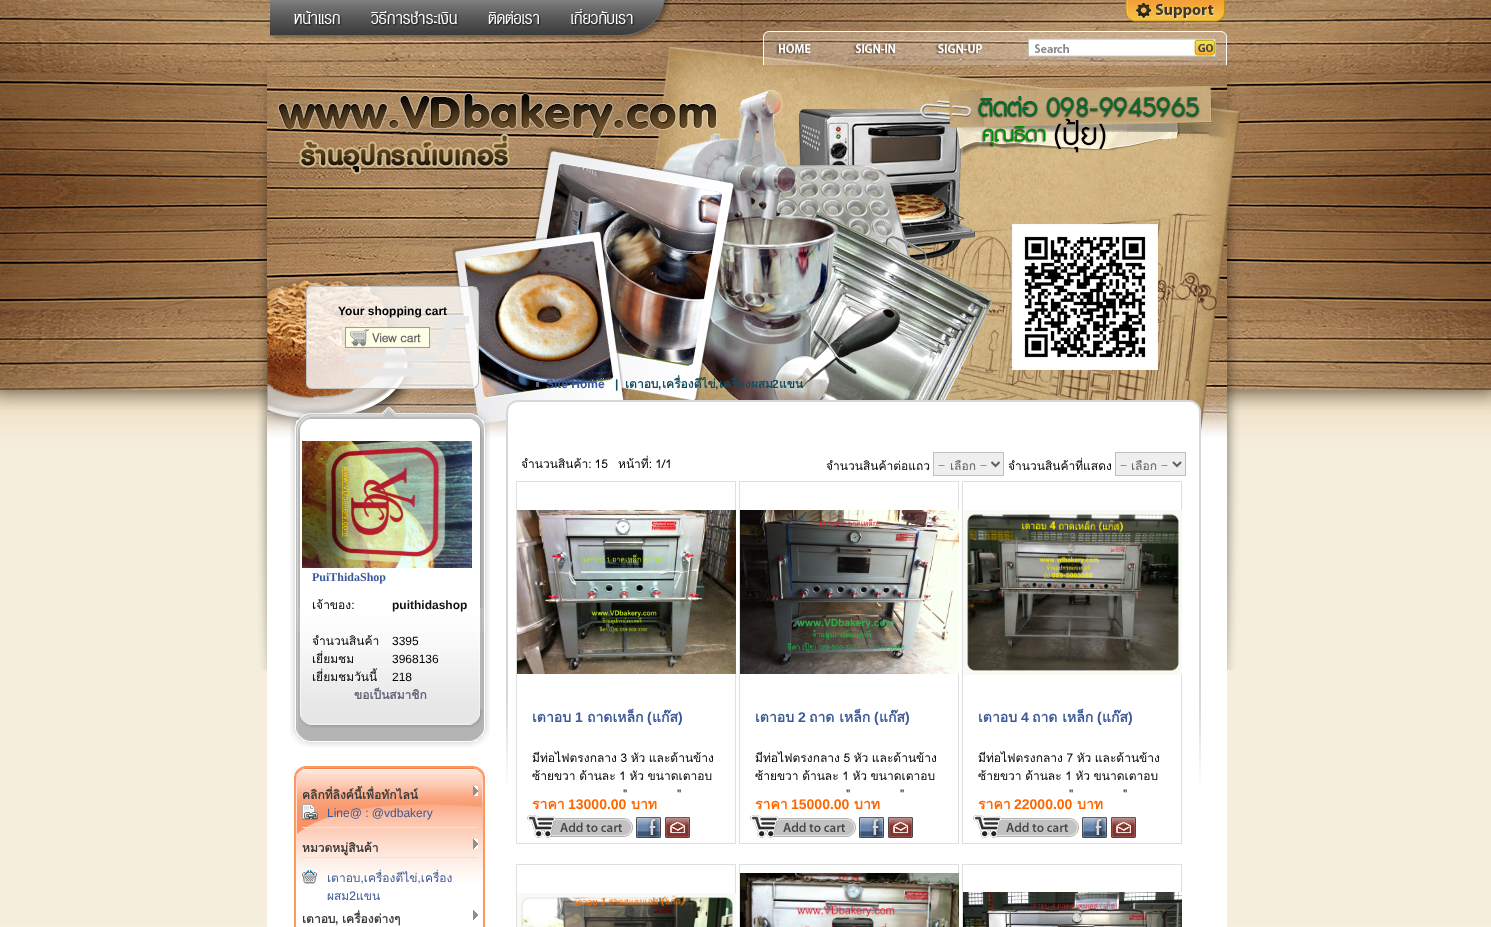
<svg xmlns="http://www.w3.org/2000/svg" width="1491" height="927">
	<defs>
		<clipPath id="clip1"><rect x="532" y="749" width="188" height="45" /></clipPath>
		<clipPath id="clip2"><rect x="755" y="749" width="188" height="45" /></clipPath>
		<clipPath id="clip3"><rect x="978" y="749" width="188" height="45" /></clipPath>
	</defs>
	<rect width="100%" height="100%" fill="#FFFFFF" />
	<image x="0" y="0" width="1491" height="927" href="assets/img1.png" />
	<image x="257" y="46" width="983" height="624" href="assets/img2.png" />
	<image x="270" y="0" width="401" height="41" href="assets/img3.png" />
	<image x="1125" y="0" width="100" height="22" href="assets/img4.png" />
	<image x="763" y="31" width="464" height="34" href="assets/img5.png" />
	<image x="1194" y="39" width="21" height="17" href="assets/img6.png" />
	<image x="306" y="286" width="173" height="103" href="assets/img7.png" />
	<text x="338" y="315" font-family="Liberation Sans" font-size="12" font-weight="700" fill="#000000">Your shopping cart</text>
	<image x="345" y="327" width="85" height="21" href="assets/img8.png" />
	<rect x="267" y="670" width="960" height="257" fill="#FFFFFF" />
	<image x="267" y="400" width="960" height="77" href="assets/img9.png" />
	<image x="290" y="405" width="200" height="31" href="assets/img10.png" />
	<image x="290" y="436" width="200" height="273" href="assets/img11.png" />
	<image x="296" y="608" width="188" height="101" href="assets/img12.png" />
	<image x="302" y="441" width="170" height="127" href="assets/img13.png" />
	<text x="312" y="581" font-family="Liberation Serif" font-size="12" font-weight="700" fill="#3B5998">PuiThidaShop</text>
	<text x="312" y="609" font-family="Loma" font-size="12" fill="#000000">เจ้าของ:</text>
	<text x="392" y="609" font-family="Liberation Sans" font-size="12" font-weight="700" fill="#111111">puithidashop</text>
	<text x="312" y="645" font-family="Loma" font-size="12" fill="#000000">จำนวนสินค้า</text>
	<text x="392" y="645" font-family="Liberation Sans" font-size="12" fill="#000000">3395</text>
	<text x="312" y="663" font-family="Loma" font-size="12" fill="#000000">เยี่ยมชม</text>
	<text x="392" y="663" font-family="Liberation Sans" font-size="12" fill="#000000">3968136</text>
	<text x="312" y="681" font-family="Loma" font-size="12" fill="#000000">เยี่ยมชมวันนี้</text>
	<text x="392" y="681" font-family="Liberation Sans" font-size="12" fill="#000000">218</text>
	<text x="354" y="699" font-family="Loma" font-size="12" font-weight="700" fill="#626477">ขอเป็นสมาชิก</text>
	<image x="290" y="709" width="200" height="38" href="assets/img14.png" />
	<image x="294" y="766" width="191" height="15" href="assets/img15.png" />
	<image x="294" y="781" width="191" height="146" href="assets/img16.png" />
	<image x="296" y="781" width="187" height="100" href="assets/img17.png" />
	<text x="302" y="799" font-family="Loma" font-size="12" font-weight="700" fill="#3A3A3A">คลิกที่ลิงค์นี้เพื่อทักไลน์</text>
	<image x="473" y="786" width="5" height="10" href="assets/img18.png" />
	<image x="302" y="804" width="16" height="16" href="assets/img19.png" />
	<text x="327" y="817" font-family="Liberation Sans" font-size="12" fill="#3B5998">Line@ : @vdbakery</text>
	<rect x="302" y="827" width="176" height="1" fill="#E3E4E6" />
	<text x="302" y="852" font-family="Loma" font-size="12" font-weight="700" fill="#3A3A3A">หมวดหมู่สินค้า</text>
	<image x="473" y="839" width="5" height="10" href="assets/img18.png" />
	<rect x="302" y="857" width="176" height="1" fill="#E3E4E6" />
	<image x="302" y="870" width="15" height="14" href="assets/img20.png" />
	<g font-family="Loma" font-size="12" fill="#3B5998">
		<text x="327" y="882">เตาอบ,เครื่องตีไข่,เครื่อง</text>
		<text x="327" y="900">ผสม2แขน</text>
	</g>
	<text x="302" y="923" font-family="Loma" font-size="12" font-weight="700" fill="#3A3A3A">เตาอบ</text>
	<text x="335" y="923" font-family="Liberation Sans" font-size="12" font-weight="700" fill="#3A3A3A">,</text>
	<text x="342" y="923" font-family="Loma" font-size="12" font-weight="700" fill="#3A3A3A">เครื่องต่างๆ</text>
	<image x="473" y="910" width="5" height="10" href="assets/img18.png" />
	<image x="506" y="412" width="695" height="372" href="assets/img21.png" />
	<rect x="536" y="382" width="3" height="5" fill="#5E627B" />
	<text x="546" y="388" font-family="Liberation Sans" font-size="12" font-weight="700" fill="#3B5998">Site Home</text>
	<text x="615" y="388" font-family="Liberation Sans" font-size="12" font-weight="700" fill="#144D5E">|</text>
	<text x="625" y="388" font-family="Loma" font-size="12" font-weight="700" fill="#144D5E">เตาอบ</text>
	<text x="658" y="388" font-family="Liberation Sans" font-size="12" font-weight="700" fill="#144D5E">,</text>
	<text x="662" y="388" font-family="Loma" font-size="12" font-weight="700" fill="#144D5E">เครื่องตีไข่</text>
	<text x="715" y="388" font-family="Liberation Sans" font-size="12" font-weight="700" fill="#144D5E">,</text>
	<text x="719" y="388" font-family="Loma" font-size="12" font-weight="700" fill="#144D5E">เครื่องผสม</text>
	<text x="772" y="388" font-family="Liberation Sans" font-size="12" font-weight="700" fill="#144D5E">2</text>
	<text x="779" y="388" font-family="Loma" font-size="12" font-weight="700" fill="#144D5E">แขน</text>
	<g font-family="Loma" font-size="12" fill="#000000">
		<text x="521" y="468" word-spacing="-1">จำนวนสินค้า: 15</text>
		<text x="618" y="468" word-spacing="-1">หน้าที่: 1/1</text>
		<text x="826" y="470">จำนวนสินค้าต่อแถว</text>
	</g>
	<rect x="933.5" y="452.5" width="70" height="23" fill="#EFEFEF" stroke="#BDC2C9" />
	<path d="M991.5 462L995.5 466L999.5 462" fill="none" stroke="#606060" stroke-width="2" />
	<text x="938" y="470" font-family="Dotum" font-size="12" fill="#606060">-</text>
	<text x="950" y="470" font-family="Loma" font-size="12" fill="#606060">เลือก</text>
	<text x="980" y="470" font-family="Dotum" font-size="12" fill="#606060">-</text>
	<text x="1008" y="470" font-family="Loma" font-size="12" fill="#000000">จำนวนสินค้าที่แสดง</text>
	<rect x="1115.5" y="452.5" width="70" height="23" fill="#EFEFEF" stroke="#BDC2C9" />
	<path d="M1173 462L1177 466L1181 462" fill="none" stroke="#606060" stroke-width="2" />
	<text x="1120" y="470" font-family="Dotum" font-size="12" fill="#606060">-</text>
	<text x="1131" y="470" font-family="Loma" font-size="12" fill="#606060">เลือก</text>
	<text x="1161" y="470" font-family="Dotum" font-size="12" fill="#606060">-</text>
	<rect x="516.5" y="481.5" width="219" height="362" fill="none" stroke="#DFDFDF" />
	<image x="517" y="510" width="219" height="164" href="assets/img22.png" />
	<text x="532" y="722" font-family="Loma" font-size="14" font-weight="700" fill="#3B5998">เตาอบ</text>
	<text x="575" y="722" font-family="Liberation Sans" font-size="14" font-weight="700" fill="#3B5998">1</text>
	<text x="587" y="722" font-family="Loma" font-size="14" font-weight="700" fill="#3B5998">ถาดเหล็ก</text>
	<text x="647" y="722" font-family="Liberation Sans" font-size="14" font-weight="700" fill="#3B5998">(</text>
	<text x="652" y="722" font-family="Loma" font-size="14" font-weight="700" fill="#3B5998">แก๊ส</text>
	<text x="678" y="722" font-family="Liberation Sans" font-size="14" font-weight="700" fill="#3B5998">)</text>
	<g clip-path="url(#clip1)">
		<g font-family="Loma" font-size="12" fill="#000000">
			<text x="532" y="762" word-spacing="-0.5">มีท่อไฟตรงกลาง 3 หัว และด้านข้าง</text>
			<text x="532" y="780" word-spacing="-0.5">ซ้ายขวา ด้านละ 1 หัว ขนาดเตาอบ</text>
		</g>
	</g>
	<g font-family="Loma" font-size="12" fill="#000000">
		<text x="623" y="798" word-spacing="-0.5">"</text>
		<text x="677" y="798" word-spacing="-0.5">"</text>
	</g>
	<text x="532" y="809" font-family="Loma" font-size="14" font-weight="700" fill="#FF6600">ราคา</text>
	<text x="568" y="809" font-family="Liberation Sans" font-size="14" font-weight="700" fill="#FF6600">13000.00</text>
	<text x="631" y="809" font-family="Loma" font-size="14" font-weight="700" fill="#FF6600">บาท</text>
	<image x="527" y="815" width="106" height="23" href="assets/img23.png" />
	<image x="636" y="817" width="25" height="21" href="assets/img24.png" />
	<image x="665" y="817" width="25" height="21" href="assets/img25.png" />
	<rect x="739.5" y="481.5" width="219" height="362" fill="none" stroke="#DFDFDF" />
	<image x="740" y="510" width="219" height="164" href="assets/img26.png" />
	<text x="755" y="722" font-family="Loma" font-size="14" font-weight="700" fill="#3B5998">เตาอบ</text>
	<text x="798" y="722" font-family="Liberation Sans" font-size="14" font-weight="700" fill="#3B5998">2</text>
	<text x="809" y="722" font-family="Loma" font-size="14" font-weight="700" fill="#3B5998">ถาด เหล็ก</text>
	<text x="874" y="722" font-family="Liberation Sans" font-size="14" font-weight="700" fill="#3B5998">(</text>
	<text x="879" y="722" font-family="Loma" font-size="14" font-weight="700" fill="#3B5998">แก๊ส</text>
	<text x="905" y="722" font-family="Liberation Sans" font-size="14" font-weight="700" fill="#3B5998">)</text>
	<g clip-path="url(#clip2)">
		<g font-family="Loma" font-size="12" fill="#000000">
			<text x="755" y="762" word-spacing="-0.5">มีท่อไฟตรงกลาง 5 หัว และด้านข้าง</text>
			<text x="755" y="780" word-spacing="-0.5">ซ้ายขวา ด้านละ 1 หัว ขนาดเตาอบ</text>
		</g>
	</g>
	<g font-family="Loma" font-size="12" fill="#000000">
		<text x="846" y="798" word-spacing="-0.5">"</text>
		<text x="900" y="798" word-spacing="-0.5">"</text>
	</g>
	<text x="755" y="809" font-family="Loma" font-size="14" font-weight="700" fill="#FF6600">ราคา</text>
	<text x="791" y="809" font-family="Liberation Sans" font-size="14" font-weight="700" fill="#FF6600">15000.00</text>
	<text x="854" y="809" font-family="Loma" font-size="14" font-weight="700" fill="#FF6600">บาท</text>
	<image x="750" y="815" width="106" height="23" href="assets/img23.png" />
	<image x="859" y="817" width="25" height="21" href="assets/img24.png" />
	<image x="888" y="817" width="25" height="21" href="assets/img25.png" />
	<rect x="962.5" y="481.5" width="219" height="362" fill="none" stroke="#DFDFDF" />
	<image x="963" y="510" width="219" height="165" href="assets/img27.png" />
	<text x="978" y="722" font-family="Loma" font-size="14" font-weight="700" fill="#3B5998">เตาอบ</text>
	<text x="1021" y="722" font-family="Liberation Sans" font-size="14" font-weight="700" fill="#3B5998">4</text>
	<text x="1032" y="722" font-family="Loma" font-size="14" font-weight="700" fill="#3B5998">ถาด เหล็ก</text>
	<text x="1097" y="722" font-family="Liberation Sans" font-size="14" font-weight="700" fill="#3B5998">(</text>
	<text x="1102" y="722" font-family="Loma" font-size="14" font-weight="700" fill="#3B5998">แก๊ส</text>
	<text x="1128" y="722" font-family="Liberation Sans" font-size="14" font-weight="700" fill="#3B5998">)</text>
	<g clip-path="url(#clip3)">
		<g font-family="Loma" font-size="12" fill="#000000">
			<text x="978" y="762" word-spacing="-0.5">มีท่อไฟตรงกลาง 7 หัว และด้านข้าง</text>
			<text x="978" y="780" word-spacing="-0.5">ซ้ายขวา ด้านละ 1 หัว ขนาดเตาอบ</text>
		</g>
	</g>
	<g font-family="Loma" font-size="12" fill="#000000">
		<text x="1069" y="798" word-spacing="-0.5">"</text>
		<text x="1123" y="798" word-spacing="-0.5">"</text>
	</g>
	<text x="978" y="809" font-family="Loma" font-size="14" font-weight="700" fill="#FF6600">ราคา</text>
	<text x="1014" y="809" font-family="Liberation Sans" font-size="14" font-weight="700" fill="#FF6600">22000.00</text>
	<text x="1077" y="809" font-family="Loma" font-size="14" font-weight="700" fill="#FF6600">บาท</text>
	<image x="973" y="815" width="106" height="23" href="assets/img23.png" />
	<image x="1082" y="817" width="25" height="21" href="assets/img24.png" />
	<image x="1111" y="817" width="25" height="21" href="assets/img25.png" />
	<rect x="516.5" y="864.5" width="219" height="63" fill="none" stroke="#DFDFDF" />
	<image x="517" y="893" width="219" height="34" href="assets/img28.png" />
	<rect x="739.5" y="864.5" width="219" height="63" fill="none" stroke="#DFDFDF" />
	<image x="740" y="873" width="219" height="54" href="assets/img29.png" />
	<rect x="962.5" y="864.5" width="219" height="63" fill="none" stroke="#DFDFDF" />
	<image x="963" y="892" width="219" height="35" href="assets/img30.png" />
	<image x="506" y="400" width="695" height="12" href="assets/img31.png" />
</svg>
